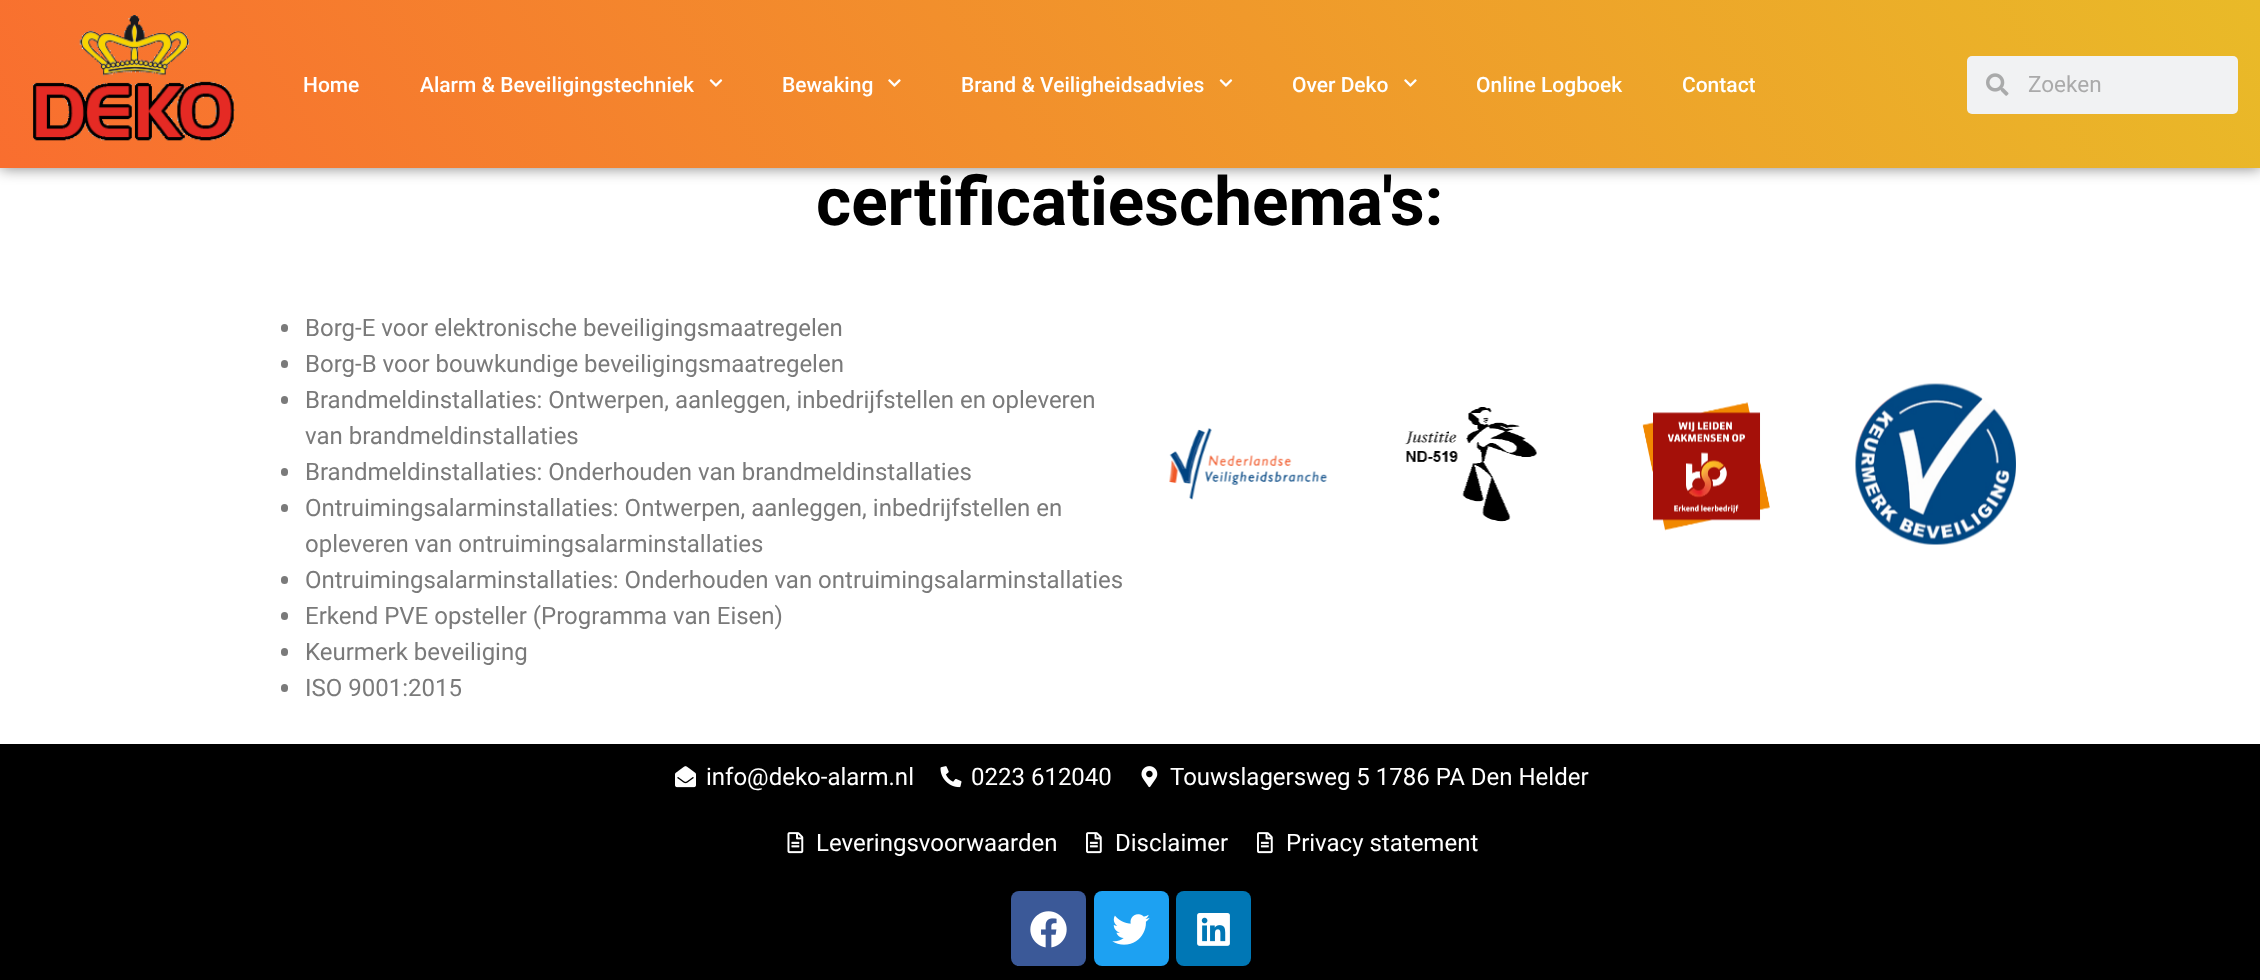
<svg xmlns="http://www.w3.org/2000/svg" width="2260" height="980">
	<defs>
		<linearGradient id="g1" gradientUnits="userSpaceOnUse" x1="246" y1="594" x2="2014" y2="-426"><stop offset="0" stop-color="#F96E2F" /><stop offset="1" stop-color="#E9BA28" /></linearGradient>
	</defs>
	<rect width="100%" height="100%" fill="#FFFFFF" />
	<rect x="0" y="0" width="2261" height="168" fill="#000000" fill-opacity="0.5" filter="blur(7.5px)" />
	<rect x="0" y="0" width="2260" height="168" fill="url(#g1)" />
	<image x="33" y="15" width="202" height="126" href="assets/img1.png" />
	<g font-family="Roboto" font-size="21" font-weight="500" fill="#FFFFFF">
		<text x="303" y="92">Home</text>
		<text x="420" y="92">Alarm &amp; Beveiligingstechniek</text>
	</g>
	<image x="709" y="79" width="14" height="8" href="assets/img2.png" />
	<text x="782" y="92" font-family="Roboto" font-size="21" font-weight="500" fill="#FFFFFF">Bewaking</text>
	<image x="888" y="79" width="13" height="8" href="assets/img3.png" />
	<text x="961" y="92" font-family="Roboto" font-size="21" font-weight="500" fill="#FFFFFF">Brand &amp; Veiligheidsadvies</text>
	<image x="1219" y="79" width="14" height="8" href="assets/img4.png" />
	<text x="1292" y="92" font-family="Roboto" font-size="21" font-weight="500" fill="#FFFFFF">Over Deko</text>
	<image x="1404" y="79" width="13" height="8" href="assets/img5.png" />
	<g font-family="Roboto" font-size="21" font-weight="500" fill="#FFFFFF">
		<text x="1476" y="92">Online Logboek</text>
		<text x="1682" y="92">Contact</text>
	</g>
	<rect x="1967" y="56" width="271" height="58" rx="5" fill="#F1F2F3" />
	<image x="1986" y="73" width="23" height="23" href="assets/img6.png" />
	<text x="2028" y="92" font-family="Roboto" font-size="22.5" fill="#AAAAAA">Zoeken</text>
	<text x="816" y="225" font-family="Roboto" font-size="67.5" font-weight="700" fill="#000000">certificatieschema's:</text>
	<rect x="281" y="324" width="7" height="8" rx="3.5" fill="#7A7A7A" />
	<text x="305" y="336" font-family="Roboto" font-size="24" fill="#7A7A7A">Borg-E voor elektronische beveiligingsmaatregelen</text>
	<rect x="281" y="360" width="7" height="8" rx="3.5" fill="#7A7A7A" />
	<text x="305" y="372" font-family="Roboto" font-size="24" fill="#7A7A7A">Borg-B voor bouwkundige beveiligingsmaatregelen</text>
	<rect x="281" y="396" width="7" height="8" rx="3.5" fill="#7A7A7A" />
	<g font-family="Roboto" font-size="24" fill="#7A7A7A">
		<text x="305" y="408">Brandmeldinstallaties: Ontwerpen, aanleggen, inbedrijfstellen en opleveren</text>
		<text x="305" y="444">van brandmeldinstallaties</text>
	</g>
	<rect x="281" y="468" width="7" height="8" rx="3.5" fill="#7A7A7A" />
	<text x="305" y="480" font-family="Roboto" font-size="24" fill="#7A7A7A">Brandmeldinstallaties: Onderhouden van brandmeldinstallaties</text>
	<rect x="281" y="504" width="7" height="8" rx="3.5" fill="#7A7A7A" />
	<g font-family="Roboto" font-size="24" fill="#7A7A7A">
		<text x="305" y="516">Ontruimingsalarminstallaties: Ontwerpen, aanleggen, inbedrijfstellen en</text>
		<text x="305" y="552">opleveren van ontruimingsalarminstallaties</text>
	</g>
	<rect x="281" y="576" width="7" height="8" rx="3.5" fill="#7A7A7A" />
	<text x="305" y="588" font-family="Roboto" font-size="24" fill="#7A7A7A">Ontruimingsalarminstallaties: Onderhouden van ontruimingsalarminstallaties</text>
	<rect x="281" y="612" width="7" height="8" rx="3.5" fill="#7A7A7A" />
	<text x="305" y="624" font-family="Roboto" font-size="24" fill="#7A7A7A">Erkend PVE opsteller (Programma van Eisen)</text>
	<rect x="281" y="648" width="7" height="8" rx="3.5" fill="#7A7A7A" />
	<text x="305" y="660" font-family="Roboto" font-size="24" fill="#7A7A7A">Keurmerk beveiliging</text>
	<rect x="281" y="684" width="7" height="8" rx="3.5" fill="#7A7A7A" />
	<text x="305" y="696" font-family="Roboto" font-size="24" fill="#7A7A7A">ISO 9001:2015</text>
	<image x="1169" y="428" width="159" height="72" href="assets/img7.png" />
	<image x="1404" y="407" width="133" height="115" href="assets/img8.png" />
	<image x="1642" y="402" width="128" height="129" href="assets/img9.png" />
	<image x="1855" y="383" width="161" height="162" href="assets/img10.png" />
	<rect x="0" y="744" width="2260" height="236" fill="#000000" />
	<image x="675" y="766" width="21" height="22" href="assets/img11.png" />
	<text x="706" y="785" font-family="Roboto" font-size="24" fill="#FFFFFF">info@deko-alarm.nl</text>
	<image x="940" y="766" width="22" height="22" href="assets/img12.png" />
	<text x="971" y="785" font-family="Roboto" font-size="24" fill="#FFFFFF">0223 612040</text>
	<image x="1141" y="766" width="17" height="22" href="assets/img13.png" />
	<text x="1170" y="785" font-family="Roboto" font-size="24" fill="#FFFFFF">Touwslagersweg 5 1786 PA Den Helder</text>
	<image x="787" y="832" width="17" height="22" href="assets/img14.png" />
	<text x="816" y="851" font-family="Roboto" font-size="24" fill="#FFFFFF">Leveringsvoorwaarden</text>
	<image x="1086" y="832" width="16" height="22" href="assets/img15.png" />
	<text x="1115" y="851" font-family="Roboto" font-size="24" fill="#FFFFFF">Disclaimer</text>
	<image x="1257" y="832" width="16" height="22" href="assets/img15.png" />
	<text x="1286" y="851" font-family="Roboto" font-size="24" fill="#FFFFFF">Privacy statement</text>
	<rect x="1011" y="891" width="75" height="75" rx="8" fill="#3B5998" />
	<image x="1030" y="911" width="37" height="37" href="assets/img16.png" />
	<rect x="1094" y="891" width="75" height="75" rx="8" fill="#1DA1F2" />
	<image x="1112" y="914" width="38" height="31" href="assets/img17.png" />
	<rect x="1176" y="891" width="75" height="75" rx="8" fill="#0077B5" />
	<image x="1197" y="913" width="33" height="33" href="assets/img18.png" />
</svg>
